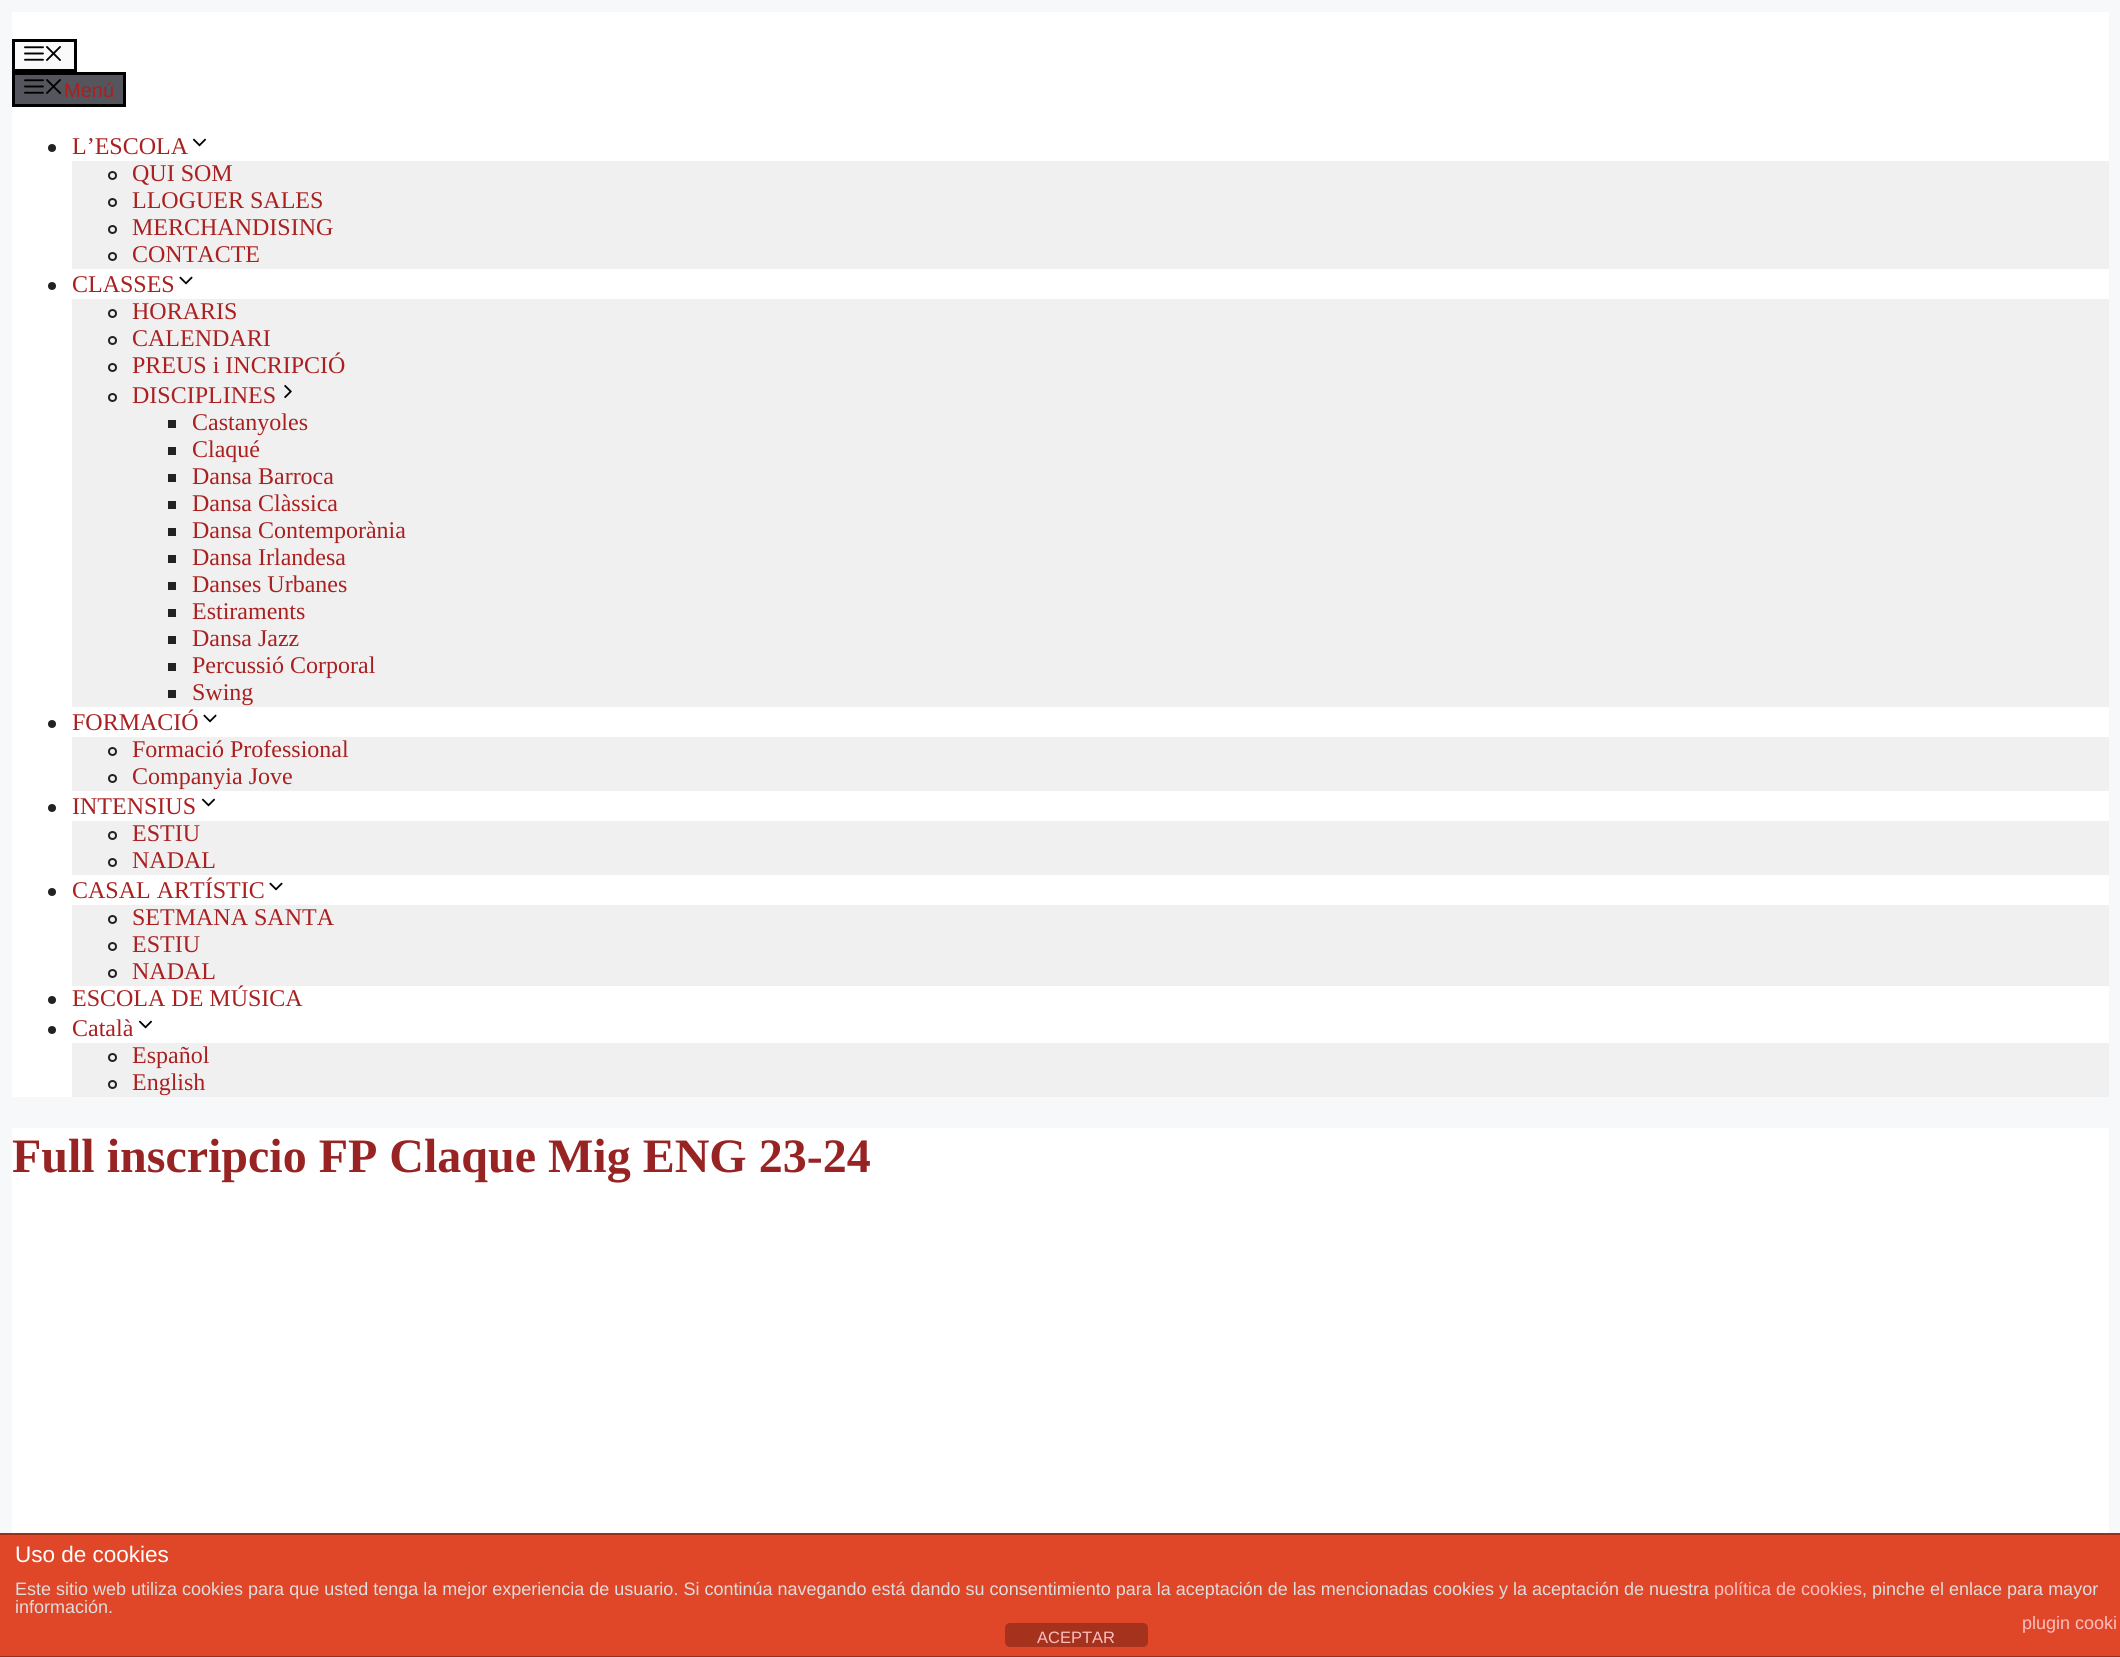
#include <cairo.h>
#include <math.h>
#include <stddef.h>

typedef struct { double x, y, w, h; unsigned color; } box_t;

static void ink(cairo_t *ctx, unsigned color) {
    cairo_set_source_rgb(ctx, (color >> 16) / 255.0, (color >> 8 & 255) / 255.0, (color & 255) / 255.0);
}

static void round_path(cairo_t *ctx, double x, double y, double w, double h, double r) {
    cairo_new_sub_path(ctx);
    cairo_arc(ctx, x + w - r, y + h - r, r, 0, M_PI / 2);
    cairo_arc(ctx, x + r, y + h - r, r, M_PI / 2, M_PI);
    cairo_arc(ctx, x + r, y + r, r, M_PI, 1.5 * M_PI);
    cairo_arc(ctx, x + w - r, y + r, r, 1.5 * M_PI, 2 * M_PI);
    cairo_close_path(ctx);
}

static void paste(cairo_t *ctx, const char *path, double x, double y, double w, double h) {
    cairo_surface_t *image = cairo_image_surface_create_from_png(path);
    cairo_save(ctx);
    cairo_set_source_surface(ctx, image, x, y);
    cairo_rectangle(ctx, x, y, w, h);
    cairo_fill(ctx);
    cairo_restore(ctx);
    cairo_surface_destroy(image);
}

int main(void) {
    cairo_surface_t *surface = cairo_image_surface_create(CAIRO_FORMAT_RGB24, 2120, 1657);
    cairo_t *ctx = cairo_create(surface);
    cairo_font_options_t *options = cairo_font_options_create();
    cairo_font_options_set_hint_metrics(options, CAIRO_HINT_METRICS_OFF);
    cairo_font_options_set_hint_style(options, CAIRO_HINT_STYLE_NONE);
    cairo_set_font_options(ctx, options);
    cairo_set_miter_limit(ctx, 4);
    ink(ctx, 0xF7F8F9);
    cairo_paint(ctx);
    ink(ctx, 0xFFFFFF);
    cairo_rectangle(ctx, 12, 12, 2097, 1085);
    cairo_fill(ctx);
    ink(ctx, 0xFAFAFA);
    cairo_rectangle(ctx, 13.5, 40.5, 62, 30);
    cairo_fill_preserve(ctx);
    ink(ctx, 0x000000);
    cairo_set_line_width(ctx, 3);
    cairo_stroke(ctx);
    paste(ctx, "media/1.png", 24, 46, 20, 15);
    paste(ctx, "media/2.png", 46, 46, 15, 15);
    ink(ctx, 0x55555E);
    cairo_rectangle(ctx, 13.5, 73.5, 111, 32);
    cairo_fill_preserve(ctx);
    ink(ctx, 0x000000);
    cairo_stroke(ctx);
    paste(ctx, "media/3.png", 24, 79, 20, 15);
    paste(ctx, "media/4.png", 46, 79, 15, 15);
    cairo_select_font_face(ctx, "Liberation Sans", CAIRO_FONT_SLANT_NORMAL, CAIRO_FONT_WEIGHT_NORMAL);
    cairo_set_font_size(ctx, 20);
    ink(ctx, 0xAA2020);
    cairo_move_to(ctx, 64, 97);
    cairo_show_text(ctx, "Menú");
    cairo_select_font_face(ctx, "Liberation Serif", CAIRO_FONT_SLANT_NORMAL, CAIRO_FONT_WEIGHT_NORMAL);
    cairo_set_font_size(ctx, 24);
    cairo_move_to(ctx, 72, 154);
    cairo_show_text(ctx, "L’ESCOLA");
    paste(ctx, "media/5.png", 192, 138, 15, 9);
    ink(ctx, 0x222222);
    cairo_arc(ctx, 52, 148, 4, 0, 2 * M_PI);
    cairo_fill(ctx);
    ink(ctx, 0xF0F0F0);
    cairo_rectangle(ctx, 72, 161, 2037, 108);
    cairo_fill(ctx);
    cairo_arc(ctx, 112.5, 175.5, 3.5, 0, 2 * M_PI);
    ink(ctx, 0x222222);
    cairo_set_line_width(ctx, 2);
    cairo_stroke(ctx);
    ink(ctx, 0xAA2020);
    cairo_move_to(ctx, 132, 181);
    cairo_show_text(ctx, "QUI SOM");
    cairo_new_path(ctx);
    cairo_arc(ctx, 112.5, 202.5, 3.5, 0, 2 * M_PI);
    ink(ctx, 0x222222);
    cairo_stroke(ctx);
    ink(ctx, 0xAA2020);
    cairo_move_to(ctx, 132, 208);
    cairo_show_text(ctx, "LLOGUER SALES");
    cairo_new_path(ctx);
    cairo_arc(ctx, 112.5, 229.5, 3.5, 0, 2 * M_PI);
    ink(ctx, 0x222222);
    cairo_stroke(ctx);
    ink(ctx, 0xAA2020);
    cairo_move_to(ctx, 132, 235);
    cairo_show_text(ctx, "MERCHANDISING");
    cairo_new_path(ctx);
    cairo_arc(ctx, 112.5, 256.5, 3.5, 0, 2 * M_PI);
    ink(ctx, 0x222222);
    cairo_stroke(ctx);
    ink(ctx, 0xAA2020);
    cairo_move_to(ctx, 132, 262);
    cairo_show_text(ctx, "CONTACTE");
    cairo_move_to(ctx, 72, 292);
    cairo_show_text(ctx, "CLASSES");
    paste(ctx, "media/6.png", 179, 276, 14, 9);
    ink(ctx, 0x222222);
    cairo_arc(ctx, 52, 286, 4, 0, 2 * M_PI);
    cairo_fill(ctx);
    ink(ctx, 0xF0F0F0);
    cairo_rectangle(ctx, 72, 299, 2037, 408);
    cairo_fill(ctx);
    cairo_arc(ctx, 112.5, 313.5, 3.5, 0, 2 * M_PI);
    ink(ctx, 0x222222);
    cairo_stroke(ctx);
    ink(ctx, 0xAA2020);
    cairo_move_to(ctx, 132, 319);
    cairo_show_text(ctx, "HORARIS");
    cairo_new_path(ctx);
    cairo_arc(ctx, 112.5, 340.5, 3.5, 0, 2 * M_PI);
    ink(ctx, 0x222222);
    cairo_stroke(ctx);
    ink(ctx, 0xAA2020);
    cairo_move_to(ctx, 132, 346);
    cairo_show_text(ctx, "CALENDARI");
    cairo_new_path(ctx);
    cairo_arc(ctx, 112.5, 367.5, 3.5, 0, 2 * M_PI);
    ink(ctx, 0x222222);
    cairo_stroke(ctx);
    ink(ctx, 0xAA2020);
    cairo_move_to(ctx, 132, 373);
    cairo_show_text(ctx, "PREUS i INCRIPCIÓ");
    cairo_new_path(ctx);
    cairo_arc(ctx, 112.5, 397.5, 3.5, 0, 2 * M_PI);
    ink(ctx, 0x222222);
    cairo_stroke(ctx);
    ink(ctx, 0xAA2020);
    cairo_move_to(ctx, 132, 403);
    cairo_show_text(ctx, "DISCIPLINES");
    paste(ctx, "media/7.png", 284, 384, 8, 15);
    ink(ctx, 0x222222);
    cairo_rectangle(ctx, 168, 420, 8, 8);
    cairo_fill(ctx);
    ink(ctx, 0xAA2020);
    cairo_move_to(ctx, 192, 430);
    cairo_show_text(ctx, "Castanyoles");
    ink(ctx, 0x222222);
    cairo_rectangle(ctx, 168, 447, 8, 8);
    cairo_fill(ctx);
    ink(ctx, 0xAA2020);
    cairo_move_to(ctx, 192, 457);
    cairo_show_text(ctx, "Claqué");
    ink(ctx, 0x222222);
    cairo_rectangle(ctx, 168, 474, 8, 8);
    cairo_fill(ctx);
    ink(ctx, 0xAA2020);
    cairo_move_to(ctx, 192, 484);
    cairo_show_text(ctx, "Dansa Barroca");
    ink(ctx, 0x222222);
    cairo_rectangle(ctx, 168, 501, 8, 8);
    cairo_fill(ctx);
    ink(ctx, 0xAA2020);
    cairo_move_to(ctx, 192, 511);
    cairo_show_text(ctx, "Dansa Clàssica");
    ink(ctx, 0x222222);
    cairo_rectangle(ctx, 168, 528, 8, 8);
    cairo_fill(ctx);
    ink(ctx, 0xAA2020);
    cairo_move_to(ctx, 192, 538);
    cairo_show_text(ctx, "Dansa Contemporània");
    ink(ctx, 0x222222);
    cairo_rectangle(ctx, 168, 555, 8, 8);
    cairo_fill(ctx);
    ink(ctx, 0xAA2020);
    cairo_move_to(ctx, 192, 565);
    cairo_show_text(ctx, "Dansa Irlandesa");
    ink(ctx, 0x222222);
    cairo_rectangle(ctx, 168, 582, 8, 8);
    cairo_fill(ctx);
    ink(ctx, 0xAA2020);
    cairo_move_to(ctx, 192, 592);
    cairo_show_text(ctx, "Danses Urbanes");
    ink(ctx, 0x222222);
    cairo_rectangle(ctx, 168, 609, 8, 8);
    cairo_fill(ctx);
    ink(ctx, 0xAA2020);
    cairo_move_to(ctx, 192, 619);
    cairo_show_text(ctx, "Estiraments");
    ink(ctx, 0x222222);
    cairo_rectangle(ctx, 168, 636, 8, 8);
    cairo_fill(ctx);
    ink(ctx, 0xAA2020);
    cairo_move_to(ctx, 192, 646);
    cairo_show_text(ctx, "Dansa Jazz");
    ink(ctx, 0x222222);
    cairo_rectangle(ctx, 168, 663, 8, 8);
    cairo_fill(ctx);
    ink(ctx, 0xAA2020);
    cairo_move_to(ctx, 192, 673);
    cairo_show_text(ctx, "Percussió Corporal");
    ink(ctx, 0x222222);
    cairo_rectangle(ctx, 168, 690, 8, 8);
    cairo_fill(ctx);
    ink(ctx, 0xAA2020);
    cairo_move_to(ctx, 192, 700);
    cairo_show_text(ctx, "Swing");
    cairo_move_to(ctx, 72, 730);
    cairo_show_text(ctx, "FORMACIÓ");
    paste(ctx, "media/6.png", 203, 714, 14, 9);
    ink(ctx, 0x222222);
    cairo_arc(ctx, 52, 724, 4, 0, 2 * M_PI);
    cairo_fill(ctx);
    ink(ctx, 0xF0F0F0);
    cairo_rectangle(ctx, 72, 737, 2037, 54);
    cairo_fill(ctx);
    cairo_arc(ctx, 112.5, 751.5, 3.5, 0, 2 * M_PI);
    ink(ctx, 0x222222);
    cairo_stroke(ctx);
    ink(ctx, 0xAA2020);
    cairo_move_to(ctx, 132, 757);
    cairo_show_text(ctx, "Formació Professional");
    cairo_new_path(ctx);
    cairo_arc(ctx, 112.5, 778.5, 3.5, 0, 2 * M_PI);
    ink(ctx, 0x222222);
    cairo_stroke(ctx);
    ink(ctx, 0xAA2020);
    cairo_move_to(ctx, 132, 784);
    cairo_show_text(ctx, "Companyia Jove");
    cairo_move_to(ctx, 72, 814);
    cairo_show_text(ctx, "INTENSIUS");
    paste(ctx, "media/5.png", 201, 798, 15, 9);
    ink(ctx, 0x222222);
    cairo_arc(ctx, 52, 808, 4, 0, 2 * M_PI);
    cairo_fill(ctx);
    ink(ctx, 0xF0F0F0);
    cairo_rectangle(ctx, 72, 821, 2037, 54);
    cairo_fill(ctx);
    cairo_arc(ctx, 112.5, 835.5, 3.5, 0, 2 * M_PI);
    ink(ctx, 0x222222);
    cairo_stroke(ctx);
    ink(ctx, 0xAA2020);
    cairo_move_to(ctx, 132, 841);
    cairo_show_text(ctx, "ESTIU");
    cairo_new_path(ctx);
    cairo_arc(ctx, 112.5, 862.5, 3.5, 0, 2 * M_PI);
    ink(ctx, 0x222222);
    cairo_stroke(ctx);
    ink(ctx, 0xAA2020);
    cairo_move_to(ctx, 132, 868);
    cairo_show_text(ctx, "NADAL");
    cairo_move_to(ctx, 72, 898);
    cairo_show_text(ctx, "CASAL ARTÍSTIC");
    paste(ctx, "media/6.png", 269, 882, 14, 9);
    ink(ctx, 0x222222);
    cairo_arc(ctx, 52, 892, 4, 0, 2 * M_PI);
    cairo_fill(ctx);
    ink(ctx, 0xF0F0F0);
    cairo_rectangle(ctx, 72, 905, 2037, 81);
    cairo_fill(ctx);
    cairo_arc(ctx, 112.5, 919.5, 3.5, 0, 2 * M_PI);
    ink(ctx, 0x222222);
    cairo_stroke(ctx);
    ink(ctx, 0xAA2020);
    cairo_move_to(ctx, 132, 925);
    cairo_show_text(ctx, "SETMANA SANTA");
    cairo_new_path(ctx);
    cairo_arc(ctx, 112.5, 946.5, 3.5, 0, 2 * M_PI);
    ink(ctx, 0x222222);
    cairo_stroke(ctx);
    ink(ctx, 0xAA2020);
    cairo_move_to(ctx, 132, 952);
    cairo_show_text(ctx, "ESTIU");
    cairo_new_path(ctx);
    cairo_arc(ctx, 112.5, 973.5, 3.5, 0, 2 * M_PI);
    ink(ctx, 0x222222);
    cairo_stroke(ctx);
    ink(ctx, 0xAA2020);
    cairo_move_to(ctx, 132, 979);
    cairo_show_text(ctx, "NADAL");
    ink(ctx, 0x222222);
    cairo_new_path(ctx);
    cairo_arc(ctx, 52, 1000, 4, 0, 2 * M_PI);
    cairo_fill(ctx);
    ink(ctx, 0xAA2020);
    cairo_move_to(ctx, 72, 1006);
    cairo_show_text(ctx, "ESCOLA DE MÚSICA");
    cairo_move_to(ctx, 72, 1036);
    cairo_show_text(ctx, "Català");
    paste(ctx, "media/5.png", 138, 1020, 15, 9);
    ink(ctx, 0x222222);
    cairo_arc(ctx, 52, 1030, 4, 0, 2 * M_PI);
    cairo_fill(ctx);
    ink(ctx, 0xF0F0F0);
    cairo_rectangle(ctx, 72, 1043, 2037, 54);
    cairo_fill(ctx);
    cairo_arc(ctx, 112.5, 1057.5, 3.5, 0, 2 * M_PI);
    ink(ctx, 0x222222);
    cairo_stroke(ctx);
    ink(ctx, 0xAA2020);
    cairo_move_to(ctx, 132, 1063);
    cairo_show_text(ctx, "Español");
    cairo_new_path(ctx);
    cairo_arc(ctx, 112.5, 1084.5, 3.5, 0, 2 * M_PI);
    ink(ctx, 0x222222);
    cairo_stroke(ctx);
    ink(ctx, 0xAA2020);
    cairo_move_to(ctx, 132, 1090);
    cairo_show_text(ctx, "English");
    ink(ctx, 0xFFFFFF);
    cairo_rectangle(ctx, 12, 1128, 2097, 405);
    cairo_fill(ctx);
    cairo_select_font_face(ctx, "Liberation Serif", CAIRO_FONT_SLANT_NORMAL, CAIRO_FONT_WEIGHT_BOLD);
    cairo_set_font_size(ctx, 48);
    ink(ctx, 0x972323);
    cairo_move_to(ctx, 12, 1172);
    cairo_show_text(ctx, "Full inscripcio FP Claque Mig ENG 23-24");
    {
        static const box_t items[] = {
            {0, 1535, 2120, 121, 0xE04729},
            {0, 1533, 2120, 2, 0x99301B},
            {0, 1656, 2120, 1, 0x99301B},
        };
        for (size_t i = 0; i < sizeof items / sizeof *items; i++) {
            ink(ctx, items[i].color);
            cairo_rectangle(ctx, items[i].x, items[i].y, items[i].w, items[i].h);
            cairo_fill(ctx);
        }
    }
    cairo_select_font_face(ctx, "Liberation Sans", CAIRO_FONT_SLANT_NORMAL, CAIRO_FONT_WEIGHT_NORMAL);
    cairo_set_font_size(ctx, 22.5);
    ink(ctx, 0xFFFFFF);
    cairo_move_to(ctx, 15, 1562);
    cairo_show_text(ctx, "Uso de cookies");
    cairo_set_font_size(ctx, 18);
    ink(ctx, 0xDDDDDD);
    cairo_move_to(ctx, 15, 1595);
    cairo_show_text(ctx, "Este sitio web utiliza cookies para que usted tenga la mejor experiencia de usuario. Si continúa navegando está dando su consentimiento para la aceptación de las mencionadas cookies y la aceptación de nuestra");
    ink(ctx, 0xFEBEBE);
    cairo_move_to(ctx, 1714, 1595);
    cairo_show_text(ctx, "política de cookies");
    ink(ctx, 0xDDDDDD);
    cairo_move_to(ctx, 1862, 1595);
    cairo_show_text(ctx, ", pinche el enlace para mayor");
    cairo_move_to(ctx, 15, 1613);
    cairo_show_text(ctx, "información.");
    ink(ctx, 0xFEBEBE);
    cairo_move_to(ctx, 2022, 1629);
    cairo_show_text(ctx, "plugin cooki");
    ink(ctx, 0xA5321C);
    round_path(ctx, 1005, 1623, 143, 24, 5);
    cairo_fill(ctx);
    cairo_set_font_size(ctx, 16.5);
    ink(ctx, 0xFEBEBE);
    cairo_move_to(ctx, 1037, 1643);
    cairo_show_text(ctx, "ACEPTAR");
    cairo_surface_write_to_png(surface, "image.png");
    cairo_font_options_destroy(options);
    cairo_destroy(ctx);
    cairo_surface_destroy(surface);
    return 0;
}
